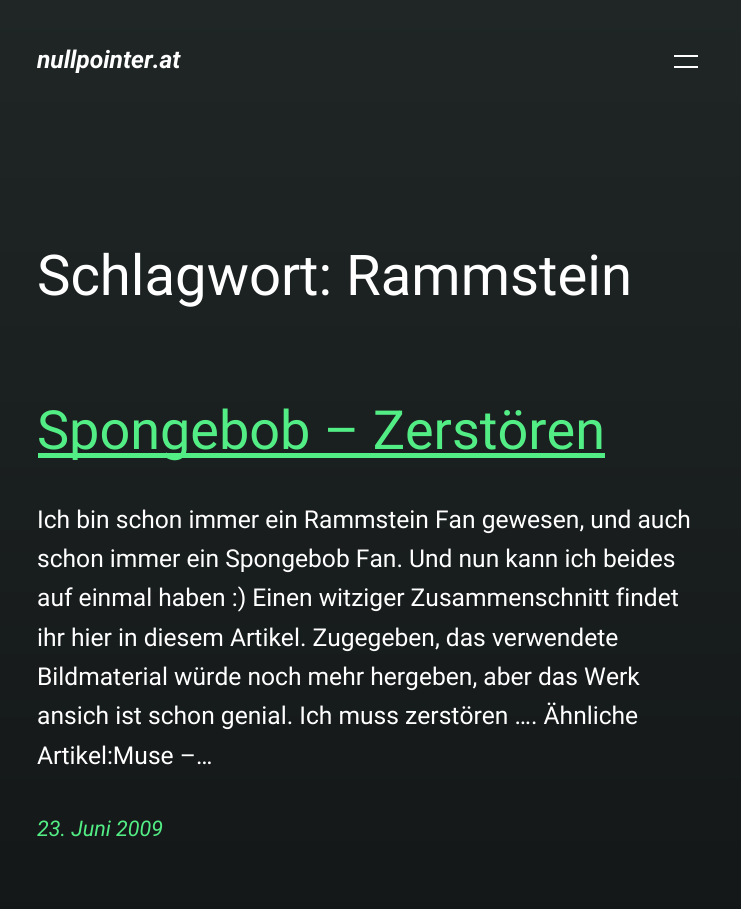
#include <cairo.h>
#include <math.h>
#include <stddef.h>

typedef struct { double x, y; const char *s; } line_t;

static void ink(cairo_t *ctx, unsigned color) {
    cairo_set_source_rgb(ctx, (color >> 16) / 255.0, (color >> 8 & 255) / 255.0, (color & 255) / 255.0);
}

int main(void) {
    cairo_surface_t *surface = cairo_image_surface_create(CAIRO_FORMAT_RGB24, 741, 909);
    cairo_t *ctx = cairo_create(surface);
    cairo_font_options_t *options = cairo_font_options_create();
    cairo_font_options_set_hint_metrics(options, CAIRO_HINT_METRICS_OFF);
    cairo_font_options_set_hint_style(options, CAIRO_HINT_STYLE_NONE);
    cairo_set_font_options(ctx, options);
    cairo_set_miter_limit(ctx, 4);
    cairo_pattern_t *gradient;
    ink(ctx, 0xFFFFFF);
    cairo_paint(ctx);
    gradient = cairo_pattern_create_linear(370, 0, 371, 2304);
    cairo_pattern_add_color_stop_rgba(gradient, 0, 0.125, 0.149, 0.149, 1);
    cairo_pattern_add_color_stop_rgba(gradient, 1, 0.004, 0.004, 0.004, 1);
    cairo_set_source(ctx, gradient);
    cairo_pattern_destroy(gradient);
    cairo_rectangle(ctx, 0, 0, 741, 909);
    cairo_fill(ctx);
    cairo_select_font_face(ctx, "Roboto", CAIRO_FONT_SLANT_ITALIC, CAIRO_FONT_WEIGHT_BOLD);
    cairo_set_font_size(ctx, 24.6);
    ink(ctx, 0xFFFFFF);
    cairo_move_to(ctx, 37, 68);
    cairo_show_text(ctx, "nullpointer.at");
    cairo_rectangle(ctx, 674, 55, 24, 2);
    cairo_fill(ctx);
    cairo_rectangle(ctx, 674, 66, 24, 2);
    cairo_fill(ctx);
    cairo_select_font_face(ctx, "Roboto", CAIRO_FONT_SLANT_NORMAL, CAIRO_FONT_WEIGHT_NORMAL);
    cairo_set_font_size(ctx, 56.25);
    cairo_move_to(ctx, 37, 295);
    cairo_show_text(ctx, "Schlagwort: Rammstein");
    ink(ctx, 0x53ED85);
    cairo_rectangle(ctx, 38, 453, 567, 5);
    cairo_fill(ctx);
    cairo_set_font_size(ctx, 54);
    cairo_move_to(ctx, 37, 449);
    cairo_show_text(ctx, "Spongebob – Zerstören");
    cairo_set_font_size(ctx, 24.6);
    ink(ctx, 0xFFFFFF);
    {
        static const line_t items[] = {
            {37, 528, "Ich bin schon immer ein Rammstein Fan gewesen, und auch"},
            {37, 567, "schon immer ein Spongebob Fan. Und nun kann ich beides"},
            {37, 606, "auf einmal haben :) Einen witziger Zusammenschnitt findet"},
            {37, 646, "ihr hier in diesem Artikel. Zugegeben, das verwendete"},
            {37, 685, "Bildmaterial würde noch mehr hergeben, aber das Werk"},
            {37, 724, "ansich ist schon genial. Ich muss zerstören …. Ähnliche"},
            {37, 764, "Artikel:Muse –…"},
        };
        for (size_t i = 0; i < sizeof items / sizeof *items; i++) {
            cairo_move_to(ctx, items[i].x, items[i].y);
            cairo_show_text(ctx, items[i].s);
        }
    }
    cairo_select_font_face(ctx, "Roboto", CAIRO_FONT_SLANT_ITALIC, CAIRO_FONT_WEIGHT_NORMAL);
    cairo_set_font_size(ctx, 21.5);
    ink(ctx, 0x53ED85);
    cairo_move_to(ctx, 37, 836);
    cairo_show_text(ctx, "23. Juni 2009");
    cairo_surface_write_to_png(surface, "image.png");
    cairo_font_options_destroy(options);
    cairo_destroy(ctx);
    cairo_surface_destroy(surface);
    return 0;
}
